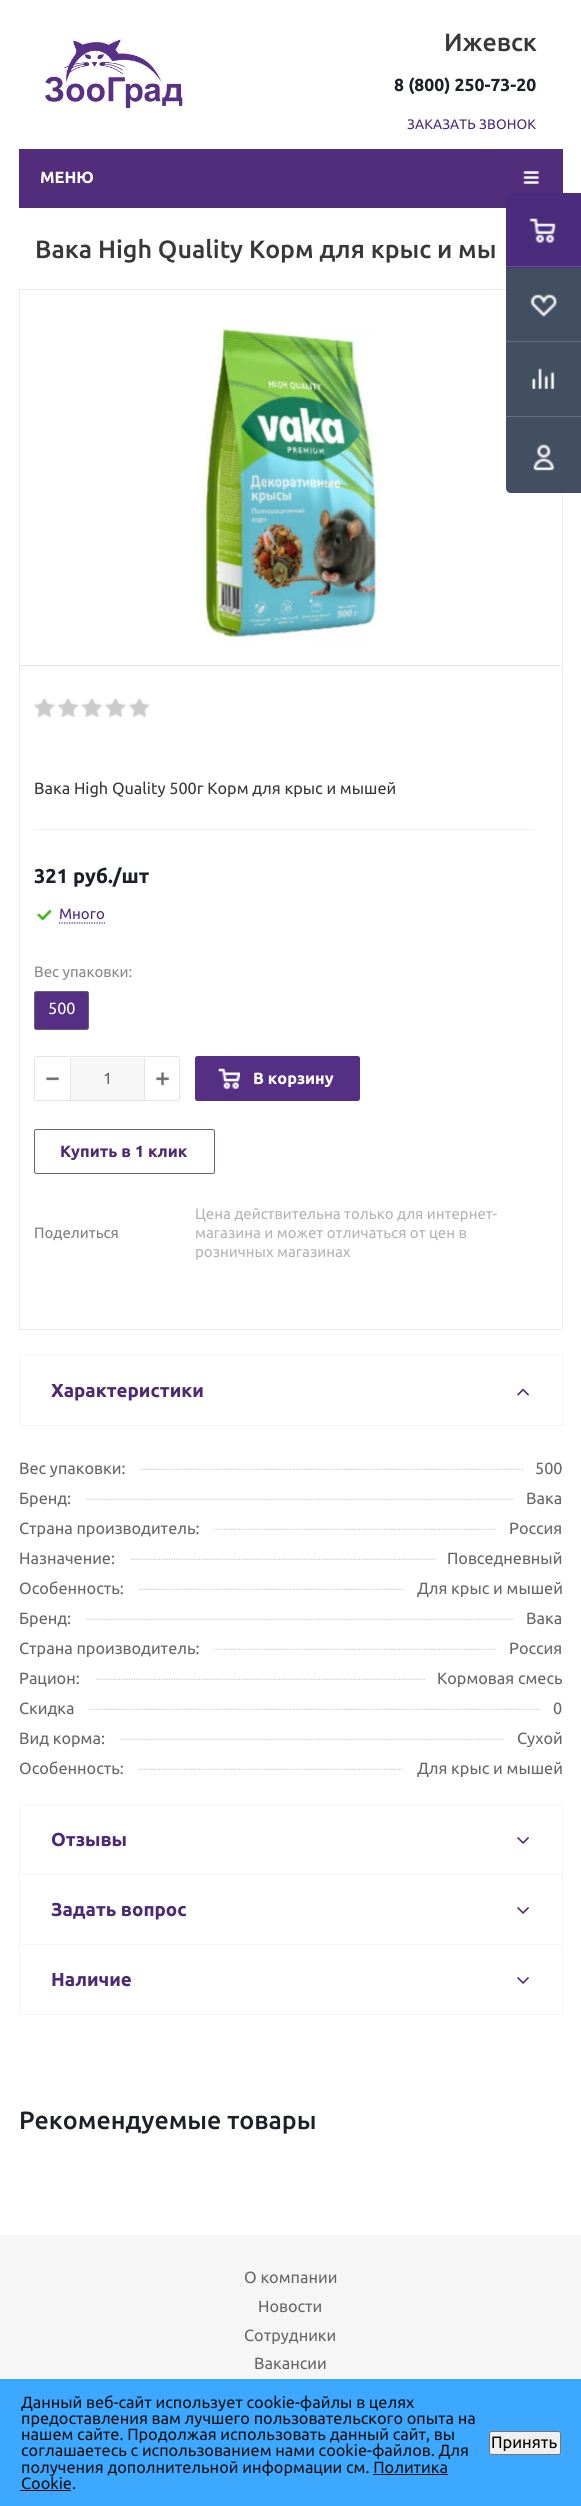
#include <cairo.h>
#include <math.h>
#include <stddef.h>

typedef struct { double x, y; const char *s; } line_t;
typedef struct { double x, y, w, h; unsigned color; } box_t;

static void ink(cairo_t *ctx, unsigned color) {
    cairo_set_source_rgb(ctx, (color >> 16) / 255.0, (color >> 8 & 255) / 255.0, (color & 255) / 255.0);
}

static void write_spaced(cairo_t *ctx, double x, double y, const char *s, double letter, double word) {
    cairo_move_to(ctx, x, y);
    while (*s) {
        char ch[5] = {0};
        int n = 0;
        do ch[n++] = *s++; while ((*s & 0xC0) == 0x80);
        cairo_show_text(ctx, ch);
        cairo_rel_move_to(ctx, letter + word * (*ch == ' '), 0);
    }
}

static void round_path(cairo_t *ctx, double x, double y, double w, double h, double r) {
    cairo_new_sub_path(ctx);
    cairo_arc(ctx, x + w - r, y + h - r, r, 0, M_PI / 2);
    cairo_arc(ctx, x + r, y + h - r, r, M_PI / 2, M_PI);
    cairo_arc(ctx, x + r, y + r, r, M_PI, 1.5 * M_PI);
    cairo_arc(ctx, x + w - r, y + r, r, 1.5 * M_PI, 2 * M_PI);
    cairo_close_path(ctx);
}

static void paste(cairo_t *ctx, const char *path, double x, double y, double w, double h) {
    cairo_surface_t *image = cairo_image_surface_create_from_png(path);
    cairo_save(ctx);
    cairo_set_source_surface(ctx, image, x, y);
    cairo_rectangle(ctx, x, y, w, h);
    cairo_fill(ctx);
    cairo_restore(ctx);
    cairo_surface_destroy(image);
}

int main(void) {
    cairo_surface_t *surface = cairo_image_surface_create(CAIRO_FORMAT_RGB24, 581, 2506);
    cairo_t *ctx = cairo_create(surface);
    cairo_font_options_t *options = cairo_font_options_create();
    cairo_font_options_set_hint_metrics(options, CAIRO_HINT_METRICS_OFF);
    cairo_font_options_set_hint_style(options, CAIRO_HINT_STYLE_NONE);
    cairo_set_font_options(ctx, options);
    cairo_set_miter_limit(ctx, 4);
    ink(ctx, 0xFFFFFF);
    cairo_paint(ctx);
    paste(ctx, "media/1.png", 45, 37, 138, 71);
    cairo_select_font_face(ctx, "Ubuntu Medium", CAIRO_FONT_SLANT_NORMAL, CAIRO_FONT_WEIGHT_NORMAL);
    cairo_set_font_size(ctx, 25);
    ink(ctx, 0x383838);
    cairo_move_to(ctx, 444, 51);
    cairo_show_text(ctx, "Ижевск");
    cairo_select_font_face(ctx, "Ubuntu", CAIRO_FONT_SLANT_NORMAL, CAIRO_FONT_WEIGHT_BOLD);
    cairo_set_font_size(ctx, 17.5);
    ink(ctx, 0x1D2029);
    cairo_move_to(ctx, 394, 91);
    cairo_show_text(ctx, "8 (800) 250-73-20");
    cairo_select_font_face(ctx, "Ubuntu", CAIRO_FONT_SLANT_NORMAL, CAIRO_FONT_WEIGHT_NORMAL);
    cairo_set_font_size(ctx, 13.75);
    ink(ctx, 0x4C2974);
    write_spaced(ctx, 407, 129, "ЗАКАЗАТЬ ЗВОНОК", 0.1, 0);
    ink(ctx, 0x512D7B);
    cairo_rectangle(ctx, 19, 149, 544, 59);
    cairo_fill(ctx);
    cairo_rectangle(ctx, 19.5, 289.5, 543, 1040);
    ink(ctx, 0xEAEBEC);
    cairo_set_line_width(ctx, 1);
    cairo_stroke(ctx);
    ink(ctx, 0x424F60);
    cairo_new_path(ctx);
    cairo_move_to(ctx, 511, 193);
    cairo_line_to(ctx, 581, 193);
    cairo_line_to(ctx, 581, 493);
    cairo_line_to(ctx, 511, 493);
    cairo_curve_to(ctx, 508, 493, 506, 491, 506, 488);
    cairo_line_to(ctx, 506, 198);
    cairo_curve_to(ctx, 506, 195, 508, 193, 511, 193);
    cairo_close_path(ctx);
    cairo_fill(ctx);
    ink(ctx, 0x4B2C7C);
    cairo_new_path(ctx);
    cairo_move_to(ctx, 511, 193);
    cairo_line_to(ctx, 581, 193);
    cairo_line_to(ctx, 581, 268);
    cairo_line_to(ctx, 506, 268);
    cairo_line_to(ctx, 506, 198);
    cairo_curve_to(ctx, 506, 195, 508, 193, 511, 193);
    cairo_close_path(ctx);
    cairo_fill(ctx);
    paste(ctx, "media/2.png", 529, 218, 27, 25);
    ink(ctx, 0x6A5394);
    cairo_rectangle(ctx, 506, 266, 75, 1);
    cairo_fill(ctx);
    paste(ctx, "media/3.png", 530, 294, 27, 23);
    ink(ctx, 0x636F7D);
    cairo_rectangle(ctx, 506, 341, 75, 1);
    cairo_fill(ctx);
    paste(ctx, "media/4.png", 531, 368, 24, 21);
    cairo_rectangle(ctx, 506, 416, 75, 1);
    cairo_fill(ctx);
    paste(ctx, "media/5.png", 533, 444, 22, 27);
    cairo_select_font_face(ctx, "Ubuntu", CAIRO_FONT_SLANT_NORMAL, CAIRO_FONT_WEIGHT_BOLD);
    cairo_set_font_size(ctx, 16.25);
    ink(ctx, 0xFFFFFF);
    cairo_move_to(ctx, 40, 183);
    cairo_show_text(ctx, "МЕНЮ");
    paste(ctx, "media/6.png", 523, 171, 16, 13);
    cairo_select_font_face(ctx, "Ubuntu Medium", CAIRO_FONT_SLANT_NORMAL, CAIRO_FONT_WEIGHT_NORMAL);
    cairo_set_font_size(ctx, 25);
    ink(ctx, 0x383838);
    cairo_move_to(ctx, 35, 258);
    cairo_show_text(ctx, "Вака High Quality Корм для крыс и мы");
    paste(ctx, "media/7.png", 205, 328, 176, 314);
    ink(ctx, 0xE5E5E5);
    cairo_rectangle(ctx, 20, 665, 541, 1);
    cairo_fill(ctx);
    ink(ctx, 0xF2F2F2);
    cairo_rectangle(ctx, 34, 829, 501, 1);
    cairo_fill(ctx);
    paste(ctx, "media/8.png", 34, 698, 21, 20);
    paste(ctx, "media/9.png", 57, 698, 22, 20);
    paste(ctx, "media/10.png", 81, 698, 22, 20);
    paste(ctx, "media/11.png", 105, 698, 22, 20);
    paste(ctx, "media/12.png", 128, 698, 22, 20);
    cairo_select_font_face(ctx, "Ubuntu", CAIRO_FONT_SLANT_NORMAL, CAIRO_FONT_WEIGHT_NORMAL);
    cairo_set_font_size(ctx, 16.25);
    ink(ctx, 0x383838);
    cairo_move_to(ctx, 34, 794);
    cairo_show_text(ctx, "Вака High Quality 500г Корм для крыс и мышей");
    cairo_select_font_face(ctx, "Ubuntu", CAIRO_FONT_SLANT_NORMAL, CAIRO_FONT_WEIGHT_BOLD);
    cairo_set_font_size(ctx, 20);
    ink(ctx, 0x1D2029);
    cairo_move_to(ctx, 34, 883);
    cairo_show_text(ctx, "321 руб./шт");
    paste(ctx, "media/13.png", 37, 909, 15, 12);
    cairo_select_font_face(ctx, "Ubuntu", CAIRO_FONT_SLANT_NORMAL, CAIRO_FONT_WEIGHT_NORMAL);
    cairo_set_font_size(ctx, 15);
    ink(ctx, 0x4C2974);
    cairo_move_to(ctx, 59, 919);
    cairo_show_text(ctx, "Много");
    cairo_new_path(ctx);
    cairo_move_to(ctx, 59, 923);
    cairo_line_to(ctx, 105, 923);
    cairo_set_line_width(ctx, 1.2);
    cairo_set_dash(ctx, (double[]){1.25, 1.25}, 2, 0);
    cairo_stroke(ctx);
    ink(ctx, 0x888888);
    cairo_move_to(ctx, 34, 977);
    cairo_show_text(ctx, "Вес упаковки:");
    ink(ctx, 0x552F83);
    round_path(ctx, 34.5, 991.5, 54, 38, 2);
    cairo_fill_preserve(ctx);
    ink(ctx, 0x6B5F77);
    cairo_set_line_width(ctx, 1);
    cairo_set_dash(ctx, NULL, 0, 0);
    cairo_stroke(ctx);
    cairo_set_font_size(ctx, 16.25);
    ink(ctx, 0xFFFFFF);
    cairo_move_to(ctx, 48, 1014);
    cairo_show_text(ctx, "500");
    round_path(ctx, 34.5, 1056.5, 145, 44, 2);
    ink(ctx, 0xE5E5E5);
    cairo_stroke(ctx);
    paste(ctx, "media/14.png", 46, 1077, 13, 4);
    {
        static const box_t items[] = {
            {71, 1058, 73, 42, 0xF7F7F7},
            {144, 1058, 1, 42, 0xE5E5E5},
            {70, 1058, 1, 42, 0xE5E5E5},
        };
        for (size_t i = 0; i < sizeof items / sizeof *items; i++) {
            ink(ctx, items[i].color);
            cairo_rectangle(ctx, items[i].x, items[i].y, items[i].w, items[i].h);
            cairo_fill(ctx);
        }
    }
    ink(ctx, 0x666666);
    cairo_move_to(ctx, 103, 1084);
    cairo_show_text(ctx, "1");
    paste(ctx, "media/15.png", 156, 1072, 13, 14);
    ink(ctx, 0x552F83);
    round_path(ctx, 195, 1056, 165, 45, 2.5);
    cairo_fill(ctx);
    paste(ctx, "media/16.png", 218, 1068, 22, 21);
    cairo_select_font_face(ctx, "Ubuntu", CAIRO_FONT_SLANT_NORMAL, CAIRO_FONT_WEIGHT_BOLD);
    ink(ctx, 0xFFFFFF);
    cairo_move_to(ctx, 253, 1084);
    cairo_show_text(ctx, "В корзину");
    round_path(ctx, 34.5, 1129.5, 180, 44, 2);
    ink(ctx, 0x6B5F77);
    cairo_stroke(ctx);
    ink(ctx, 0x4C2974);
    cairo_move_to(ctx, 60, 1157);
    cairo_show_text(ctx, "Купить в 1 клик");
    cairo_select_font_face(ctx, "Ubuntu", CAIRO_FONT_SLANT_NORMAL, CAIRO_FONT_WEIGHT_NORMAL);
    cairo_set_font_size(ctx, 15);
    ink(ctx, 0x7E7E7E);
    cairo_move_to(ctx, 34, 1238);
    cairo_show_text(ctx, "Поделиться");
    ink(ctx, 0xB3B3B3);
    {
        static const line_t items[] = {
            {195, 1219, "Цена действительна только для интернет-"},
            {195, 1238, "магазина и может отличаться от цен в"},
            {195, 1257, "розничных магазинах"},
        };
        for (size_t i = 0; i < sizeof items / sizeof *items; i++) {
            cairo_move_to(ctx, items[i].x, items[i].y);
            cairo_show_text(ctx, items[i].s);
        }
    }
    cairo_rectangle(ctx, 19.5, 1355.5, 543, 70);
    ink(ctx, 0xF5F5F5);
    cairo_stroke(ctx);
    cairo_select_font_face(ctx, "Ubuntu", CAIRO_FONT_SLANT_NORMAL, CAIRO_FONT_WEIGHT_BOLD);
    cairo_set_font_size(ctx, 18.75);
    ink(ctx, 0x4C2974);
    cairo_move_to(ctx, 51, 1397);
    cairo_show_text(ctx, "Характеристики");
    paste(ctx, "media/17.png", 517, 1388, 12, 8);
    paste(ctx, "media/18.png", 18, 1468, 274, 2);
    ink(ctx, 0xFFFFFF);
    cairo_rectangle(ctx, 19, 1468, 121, 2);
    cairo_fill(ctx);
    cairo_select_font_face(ctx, "Ubuntu", CAIRO_FONT_SLANT_NORMAL, CAIRO_FONT_WEIGHT_NORMAL);
    cairo_set_font_size(ctx, 16.25);
    ink(ctx, 0x666666);
    cairo_move_to(ctx, 19, 1474);
    cairo_show_text(ctx, "Вес упаковки:");
    paste(ctx, "media/19.png", 291, 1468, 232, 2);
    cairo_move_to(ctx, 535, 1474);
    cairo_show_text(ctx, "500");
    paste(ctx, "media/18.png", 18, 1498, 274, 2);
    ink(ctx, 0xFFFFFF);
    cairo_rectangle(ctx, 19, 1498, 67, 2);
    cairo_fill(ctx);
    ink(ctx, 0x666666);
    cairo_move_to(ctx, 19, 1504);
    cairo_show_text(ctx, "Бренд:");
    paste(ctx, "media/20.png", 291, 1498, 223, 2);
    cairo_move_to(ctx, 526, 1504);
    cairo_show_text(ctx, "Вака");
    paste(ctx, "media/18.png", 18, 1528, 274, 2);
    ink(ctx, 0xFFFFFF);
    cairo_rectangle(ctx, 19, 1528, 195, 2);
    cairo_fill(ctx);
    ink(ctx, 0x666666);
    cairo_move_to(ctx, 19, 1534);
    cairo_show_text(ctx, "Страна производитель:");
    paste(ctx, "media/21.png", 291, 1528, 205, 2);
    cairo_move_to(ctx, 509, 1534);
    cairo_show_text(ctx, "Россия");
    paste(ctx, "media/18.png", 18, 1558, 274, 2);
    ink(ctx, 0xFFFFFF);
    cairo_rectangle(ctx, 19, 1558, 111, 2);
    cairo_fill(ctx);
    ink(ctx, 0x666666);
    cairo_move_to(ctx, 19, 1564);
    cairo_show_text(ctx, "Назначение:");
    paste(ctx, "media/22.png", 291, 1558, 144, 2);
    cairo_move_to(ctx, 447, 1564);
    cairo_show_text(ctx, "Повседневный");
    paste(ctx, "media/18.png", 18, 1588, 274, 2);
    ink(ctx, 0xFFFFFF);
    cairo_rectangle(ctx, 19, 1588, 120, 2);
    cairo_fill(ctx);
    ink(ctx, 0x666666);
    cairo_move_to(ctx, 19, 1594);
    cairo_show_text(ctx, "Особенность:");
    paste(ctx, "media/23.png", 291, 1588, 113, 2);
    cairo_move_to(ctx, 417, 1594);
    cairo_show_text(ctx, "Для крыс и мышей");
    paste(ctx, "media/18.png", 18, 1618, 274, 2);
    ink(ctx, 0xFFFFFF);
    cairo_rectangle(ctx, 19, 1618, 67, 2);
    cairo_fill(ctx);
    ink(ctx, 0x666666);
    cairo_move_to(ctx, 19, 1624);
    cairo_show_text(ctx, "Бренд:");
    paste(ctx, "media/20.png", 291, 1618, 223, 2);
    cairo_move_to(ctx, 526, 1624);
    cairo_show_text(ctx, "Вака");
    paste(ctx, "media/18.png", 18, 1648, 274, 2);
    ink(ctx, 0xFFFFFF);
    cairo_rectangle(ctx, 19, 1648, 195, 2);
    cairo_fill(ctx);
    ink(ctx, 0x666666);
    cairo_move_to(ctx, 19, 1654);
    cairo_show_text(ctx, "Страна производитель:");
    paste(ctx, "media/21.png", 291, 1648, 205, 2);
    cairo_move_to(ctx, 509, 1654);
    cairo_show_text(ctx, "Россия");
    paste(ctx, "media/18.png", 18, 1678, 274, 2);
    ink(ctx, 0xFFFFFF);
    cairo_rectangle(ctx, 19, 1678, 76, 2);
    cairo_fill(ctx);
    ink(ctx, 0x666666);
    cairo_move_to(ctx, 19, 1684);
    cairo_show_text(ctx, "Рацион:");
    paste(ctx, "media/24.png", 291, 1678, 134, 2);
    cairo_move_to(ctx, 437, 1684);
    cairo_show_text(ctx, "Кормовая смесь");
    paste(ctx, "media/18.png", 18, 1708, 274, 2);
    ink(ctx, 0xFFFFFF);
    cairo_rectangle(ctx, 19, 1708, 70, 2);
    cairo_fill(ctx);
    ink(ctx, 0x666666);
    cairo_move_to(ctx, 19, 1714);
    cairo_show_text(ctx, "Скидка");
    paste(ctx, "media/25.png", 291, 1708, 250, 2);
    cairo_move_to(ctx, 553, 1714);
    cairo_show_text(ctx, "0");
    paste(ctx, "media/18.png", 18, 1738, 274, 2);
    ink(ctx, 0xFFFFFF);
    cairo_rectangle(ctx, 19, 1738, 101, 2);
    cairo_fill(ctx);
    ink(ctx, 0x666666);
    cairo_move_to(ctx, 19, 1744);
    cairo_show_text(ctx, "Вид корма:");
    paste(ctx, "media/26.png", 291, 1738, 213, 2);
    cairo_move_to(ctx, 517, 1744);
    cairo_show_text(ctx, "Сухой");
    paste(ctx, "media/18.png", 18, 1768, 274, 2);
    ink(ctx, 0xFFFFFF);
    cairo_rectangle(ctx, 19, 1768, 120, 2);
    cairo_fill(ctx);
    ink(ctx, 0x666666);
    cairo_move_to(ctx, 19, 1774);
    cairo_show_text(ctx, "Особенность:");
    paste(ctx, "media/23.png", 291, 1768, 113, 2);
    cairo_move_to(ctx, 417, 1774);
    cairo_show_text(ctx, "Для крыс и мышей");
    cairo_rectangle(ctx, 19.5, 1804.5, 543, 70);
    ink(ctx, 0xF5F5F5);
    cairo_stroke(ctx);
    cairo_select_font_face(ctx, "Ubuntu", CAIRO_FONT_SLANT_NORMAL, CAIRO_FONT_WEIGHT_BOLD);
    cairo_set_font_size(ctx, 18.75);
    ink(ctx, 0x4C2974);
    cairo_move_to(ctx, 51, 1846);
    cairo_show_text(ctx, "Отзывы");
    paste(ctx, "media/27.png", 517, 1837, 12, 7);
    cairo_rectangle(ctx, 19.5, 1874.5, 543, 70);
    ink(ctx, 0xF5F5F5);
    cairo_stroke(ctx);
    ink(ctx, 0x4C2974);
    cairo_move_to(ctx, 51, 1916);
    cairo_show_text(ctx, "Задать вопрос");
    paste(ctx, "media/27.png", 517, 1907, 12, 7);
    cairo_rectangle(ctx, 19.5, 1944.5, 543, 70);
    ink(ctx, 0xF5F5F5);
    cairo_stroke(ctx);
    ink(ctx, 0x4C2974);
    cairo_move_to(ctx, 51, 1986);
    cairo_show_text(ctx, "Наличие");
    paste(ctx, "media/27.png", 517, 1977, 12, 7);
    cairo_select_font_face(ctx, "Ubuntu Medium", CAIRO_FONT_SLANT_NORMAL, CAIRO_FONT_WEIGHT_NORMAL);
    cairo_set_font_size(ctx, 25);
    ink(ctx, 0x1D2029);
    cairo_move_to(ctx, 19, 2129);
    cairo_show_text(ctx, "Рекомендуемые товары");
    ink(ctx, 0xF6F6F7);
    cairo_rectangle(ctx, 0, 2235, 581, 144);
    cairo_fill(ctx);
    cairo_select_font_face(ctx, "Ubuntu", CAIRO_FONT_SLANT_NORMAL, CAIRO_FONT_WEIGHT_NORMAL);
    cairo_set_font_size(ctx, 16.25);
    ink(ctx, 0x666666);
    {
        static const line_t items[] = {
            {244, 2283, "О компании"},
            {258, 2312, "Новости"},
            {244, 2341, "Сотрудники"},
            {254, 2369, "Вакансии"},
        };
        for (size_t i = 0; i < sizeof items / sizeof *items; i++) {
            cairo_move_to(ctx, items[i].x, items[i].y);
            cairo_show_text(ctx, items[i].s);
        }
    }
    ink(ctx, 0x3DA8FF);
    cairo_rectangle(ctx, 0, 2379, 581, 127);
    cairo_fill(ctx);
    ink(ctx, 0x111111);
    {
        static const line_t items[] = {
            {21, 2408, "Данный веб-сайт использует cookie-файлы в целях"},
            {21, 2424, "предоставления вам лучшего пользовательского опыта на"},
            {21, 2440, "нашем сайте. Продолжая использовать данный сайт, вы"},
            {21, 2456, "соглашаетесь с использованием нами cookie-файлов. Для"},
            {21, 2473, "получения дополнительной информации см. Политика"},
            {21, 2489, "Cookie."},
        };
        for (size_t i = 0; i < sizeof items / sizeof *items; i++) {
            cairo_move_to(ctx, items[i].x, items[i].y);
            cairo_show_text(ctx, items[i].s);
        }
    }
    cairo_rectangle(ctx, 373, 2474, 75, 1);
    cairo_fill(ctx);
    cairo_rectangle(ctx, 20, 2490, 51, 1);
    cairo_fill(ctx);
    ink(ctx, 0xEFEFEF);
    round_path(ctx, 489.5, 2431.5, 71, 23, 2);
    cairo_fill_preserve(ctx);
    ink(ctx, 0x767676);
    cairo_stroke(ctx);
    cairo_set_font_size(ctx, 16.5);
    ink(ctx, 0x000000);
    cairo_move_to(ctx, 491, 2448);
    cairo_show_text(ctx, "Принять");
    cairo_surface_write_to_png(surface, "image.png");
    cairo_font_options_destroy(options);
    cairo_destroy(ctx);
    cairo_surface_destroy(surface);
    return 0;
}
